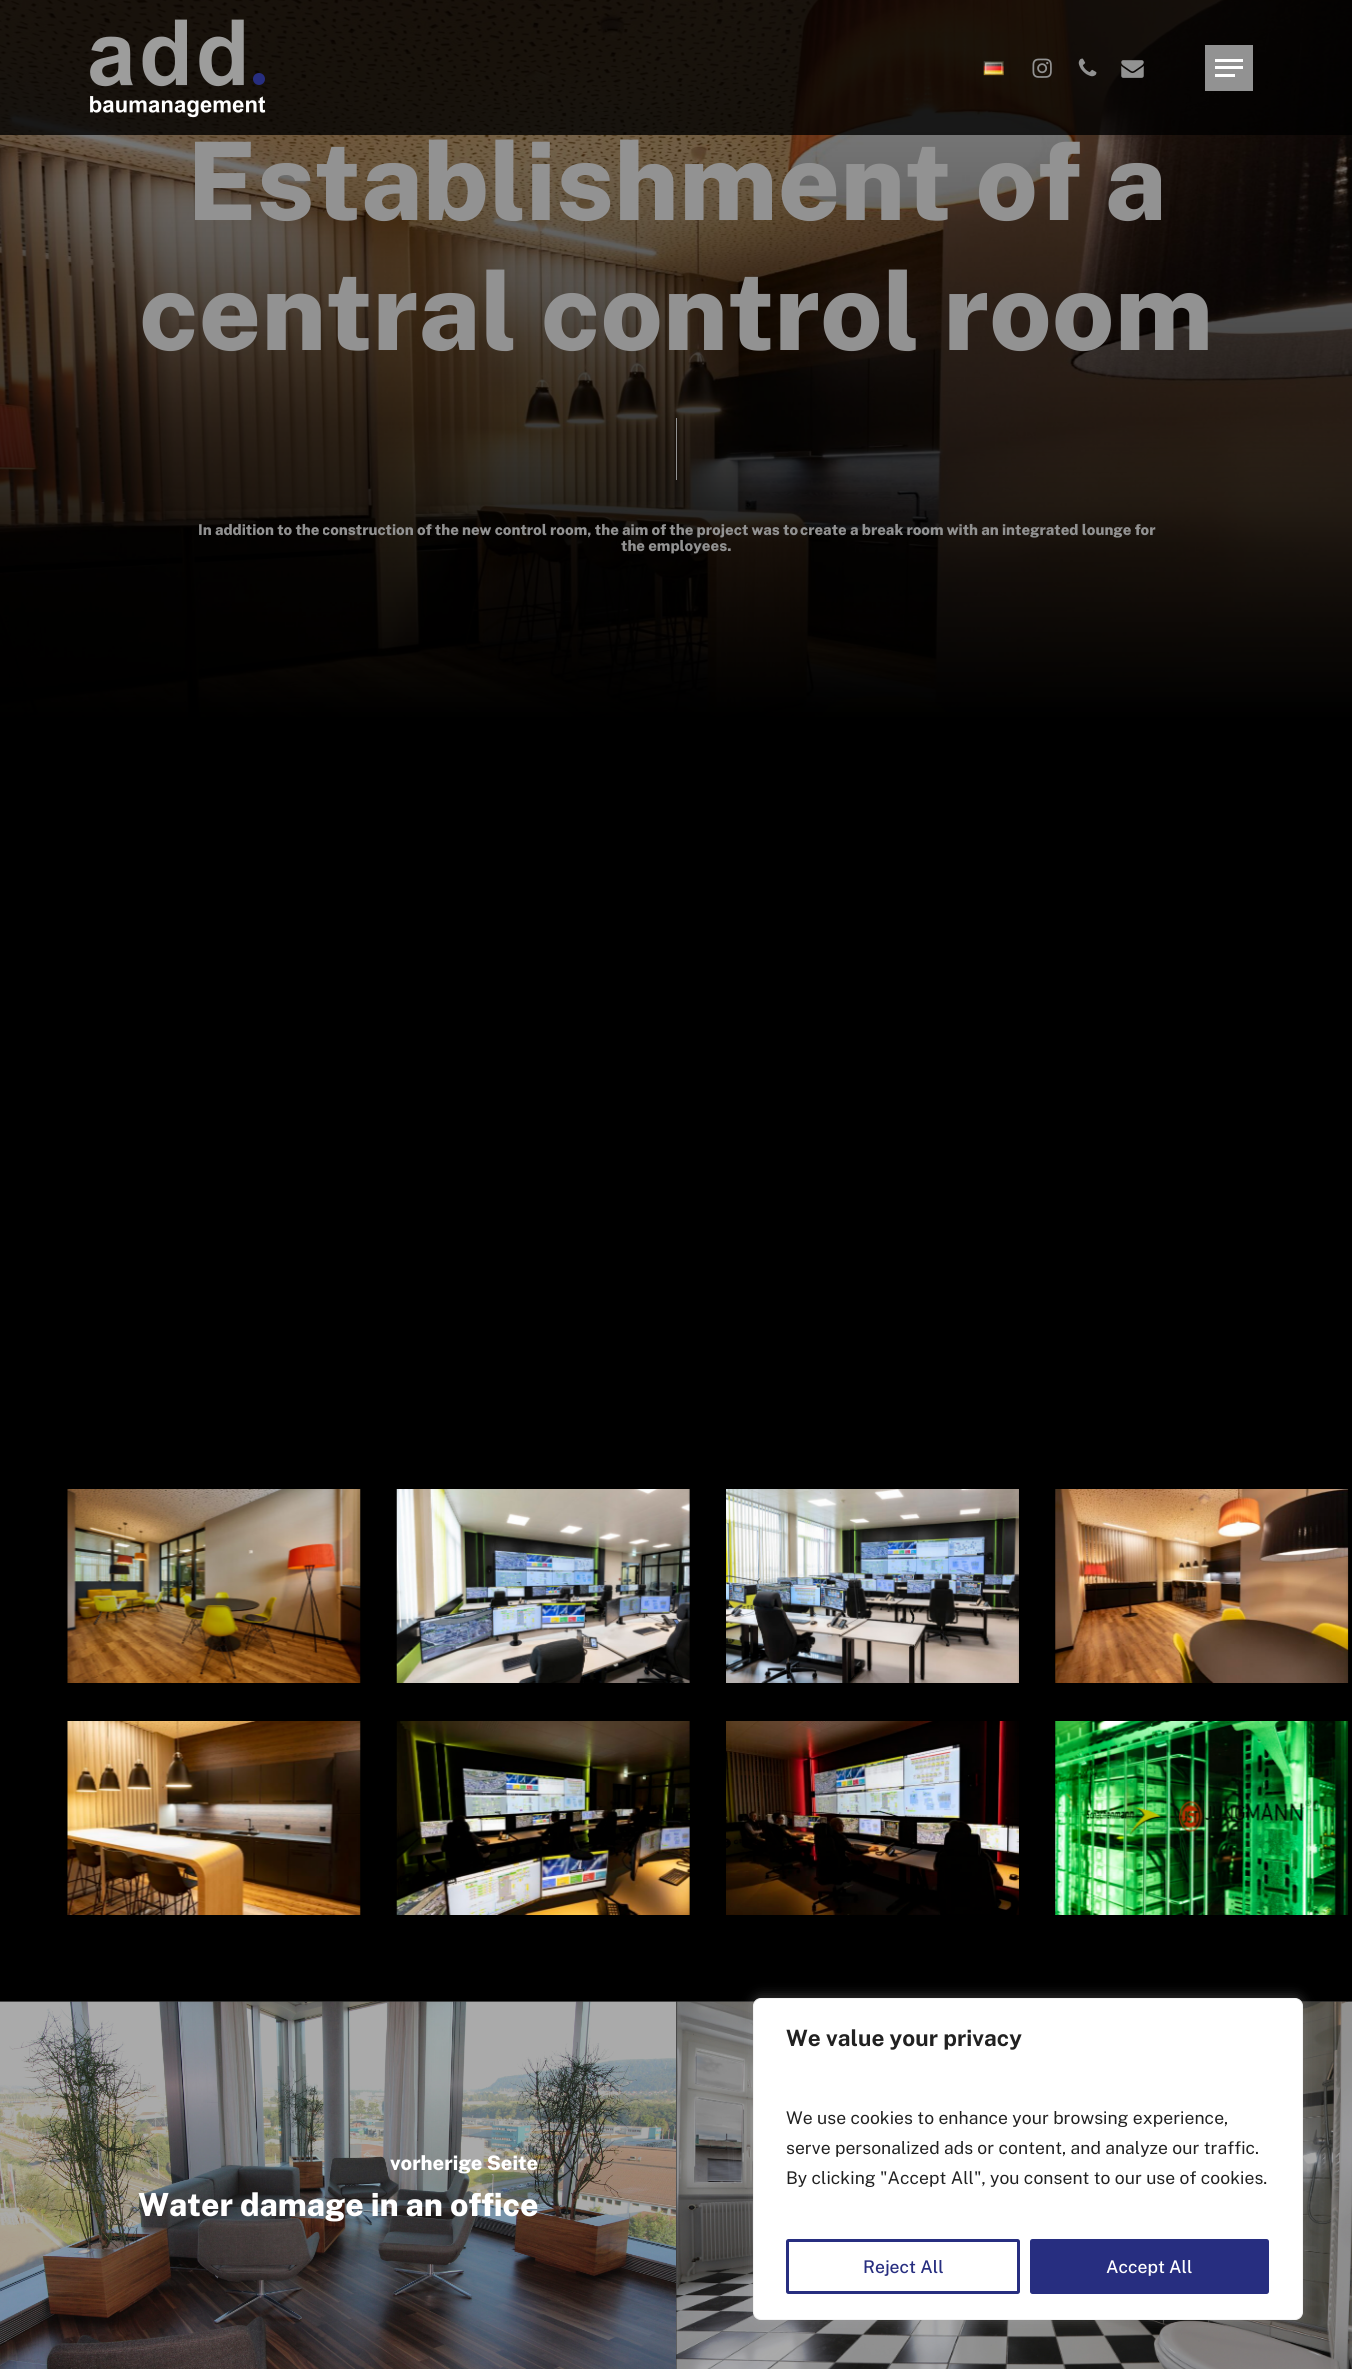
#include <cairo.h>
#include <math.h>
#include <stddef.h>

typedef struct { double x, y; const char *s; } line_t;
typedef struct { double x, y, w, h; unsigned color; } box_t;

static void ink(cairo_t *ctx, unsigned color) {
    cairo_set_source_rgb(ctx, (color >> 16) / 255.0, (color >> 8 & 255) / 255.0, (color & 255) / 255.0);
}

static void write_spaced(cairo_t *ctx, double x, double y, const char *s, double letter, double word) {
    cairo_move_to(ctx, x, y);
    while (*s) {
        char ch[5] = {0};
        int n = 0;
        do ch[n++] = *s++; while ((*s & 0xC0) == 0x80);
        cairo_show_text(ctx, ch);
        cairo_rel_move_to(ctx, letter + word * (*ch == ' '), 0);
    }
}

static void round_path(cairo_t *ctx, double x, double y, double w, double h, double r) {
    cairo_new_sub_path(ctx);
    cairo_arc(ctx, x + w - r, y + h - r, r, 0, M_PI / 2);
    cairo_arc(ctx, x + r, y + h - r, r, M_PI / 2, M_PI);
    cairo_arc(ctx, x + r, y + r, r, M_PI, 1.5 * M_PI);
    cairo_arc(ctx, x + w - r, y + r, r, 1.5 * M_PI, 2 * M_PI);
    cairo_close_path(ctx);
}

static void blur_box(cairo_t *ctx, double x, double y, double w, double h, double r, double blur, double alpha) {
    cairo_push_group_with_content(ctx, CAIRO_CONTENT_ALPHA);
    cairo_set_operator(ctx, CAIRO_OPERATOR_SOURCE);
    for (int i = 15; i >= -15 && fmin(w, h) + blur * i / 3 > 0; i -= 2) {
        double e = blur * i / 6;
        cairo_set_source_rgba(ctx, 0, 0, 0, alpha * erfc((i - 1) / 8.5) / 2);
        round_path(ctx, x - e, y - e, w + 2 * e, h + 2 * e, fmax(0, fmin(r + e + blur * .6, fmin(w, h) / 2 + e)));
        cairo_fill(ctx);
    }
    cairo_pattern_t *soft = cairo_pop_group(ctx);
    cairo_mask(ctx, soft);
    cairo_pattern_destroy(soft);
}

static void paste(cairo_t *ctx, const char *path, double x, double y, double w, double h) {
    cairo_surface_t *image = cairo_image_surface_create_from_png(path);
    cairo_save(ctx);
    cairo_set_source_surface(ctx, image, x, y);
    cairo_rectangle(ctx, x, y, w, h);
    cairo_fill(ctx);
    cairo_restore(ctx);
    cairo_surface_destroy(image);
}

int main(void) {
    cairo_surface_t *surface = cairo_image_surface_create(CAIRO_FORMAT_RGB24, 1352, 2369);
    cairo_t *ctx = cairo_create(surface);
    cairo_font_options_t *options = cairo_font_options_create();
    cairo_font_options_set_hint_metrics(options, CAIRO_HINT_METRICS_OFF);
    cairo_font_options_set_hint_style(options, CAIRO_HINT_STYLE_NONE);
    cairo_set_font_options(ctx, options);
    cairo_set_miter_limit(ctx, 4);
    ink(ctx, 0x000000);
    cairo_paint(ctx);
    paste(ctx, "media/6.png", 0, 0, 1352, 719);
    cairo_set_source_rgba(ctx, 0, 0, 0, 0.8);
    cairo_rectangle(ctx, 0, 0, 1352, 135);
    cairo_fill(ctx);
    paste(ctx, "media/1.png", 90, 19, 176, 99);
    paste(ctx, "media/2.png", 983, 61, 21, 15);
    paste(ctx, "media/3.png", 1032, 58, 20, 20);
    paste(ctx, "media/4.png", 1078, 58, 19, 19);
    paste(ctx, "media/5.png", 1121, 60, 23, 18);
    {
        static const box_t items[] = {
            {1205, 45, 48, 46, 0x929292},
            {1215, 59, 28, 3, 0xFFFFFF},
            {1215, 74, 20, 3, 0xFFFFFF},
            {1215, 66, 28, 3, 0xFFFFFF},
        };
        for (size_t i = 0; i < sizeof items / sizeof *items; i++) {
            ink(ctx, items[i].color);
            cairo_rectangle(ctx, items[i].x, items[i].y, items[i].w, items[i].h);
            cairo_fill(ctx);
        }
    }
    cairo_select_font_face(ctx, "Public Sans ExtraBold", CAIRO_FONT_SLANT_NORMAL, CAIRO_FONT_WEIGHT_NORMAL);
    cairo_set_font_size(ctx, 108.25);
    ink(ctx, 0x929292);
    cairo_move_to(ctx, 187, 220);
    cairo_show_text(ctx, "Establishment of a");
    cairo_move_to(ctx, 139, 350);
    cairo_show_text(ctx, "central control room");
    cairo_rectangle(ctx, 676, 418, 1, 62);
    cairo_fill(ctx);
    cairo_set_font_size(ctx, 14.9);
    cairo_move_to(ctx, 198, 535);
    cairo_show_text(ctx, "In addition to the");
    cairo_save(ctx);
    cairo_rectangle(ctx, 323, 523, 91, 16);
    cairo_clip(ctx);
    cairo_move_to(ctx, 322, 535);
    cairo_show_text(ctx, "construction");
    cairo_restore(ctx);
    cairo_move_to(ctx, 417, 535);
    cairo_show_text(ctx, "of the new control room, the aim of the project was to");
    cairo_save(ctx);
    cairo_rectangle(ctx, 800, 523, 46, 16);
    cairo_clip(ctx);
    cairo_move_to(ctx, 800, 535);
    cairo_show_text(ctx, "create");
    cairo_restore(ctx);
    cairo_move_to(ctx, 850, 535);
    cairo_show_text(ctx, "a break room with an integrated lounge for");
    cairo_move_to(ctx, 621, 551);
    cairo_show_text(ctx, "the employees.");
    paste(ctx, "media/7.png", 67, 1489, 294, 194);
    paste(ctx, "media/8.png", 396, 1489, 294, 194);
    paste(ctx, "media/9.png", 726, 1489, 293, 194);
    paste(ctx, "media/10.png", 1055, 1489, 294, 194);
    paste(ctx, "media/11.png", 67, 1721, 294, 194);
    paste(ctx, "media/12.png", 396, 1721, 294, 194);
    paste(ctx, "media/13.png", 726, 1721, 293, 194);
    paste(ctx, "media/14.png", 1055, 1721, 294, 194);
    ink(ctx, 0x262626);
    cairo_rectangle(ctx, 0, 2001, 676, 1);
    cairo_fill(ctx);
    paste(ctx, "media/15.png", 0, 2001, 676, 368);
    cairo_set_font_size(ctx, 20);
    ink(ctx, 0xFFFFFF);
    cairo_move_to(ctx, 390, 2170);
    cairo_show_text(ctx, "vorherige Seite");
    cairo_set_font_size(ctx, 31.9);
    cairo_move_to(ctx, 138, 2216);
    cairo_show_text(ctx, "Water damage in an office");
    ink(ctx, 0x333333);
    cairo_rectangle(ctx, 676, 2001, 676, 368);
    cairo_fill(ctx);
    paste(ctx, "media/16.png", 676, 2001, 676, 368);
    cairo_set_source_rgba(ctx, 0.051, 0.051, 0.051, 0.35);
    cairo_rectangle(ctx, 676, 2001, 676, 368);
    cairo_fill(ctx);
    ink(ctx, 0xACABAB);
    blur_box(ctx, 753, 1996, 550, 323, 8, 6, 0.3);
    ink(ctx, 0xFFFFFF);
    round_path(ctx, 753.5, 1998.5, 549, 321, 7.5);
    cairo_fill_preserve(ctx);
    ink(ctx, 0xF4F4F4);
    cairo_set_line_width(ctx, 1);
    cairo_stroke(ctx);
    cairo_select_font_face(ctx, "Public Sans", CAIRO_FONT_SLANT_NORMAL, CAIRO_FONT_WEIGHT_BOLD);
    cairo_set_font_size(ctx, 22.5);
    ink(ctx, 0x212121);
    write_spaced(ctx, 786, 2046, "We value your privacy", 0.05, 0);
    cairo_select_font_face(ctx, "Public Sans", CAIRO_FONT_SLANT_NORMAL, CAIRO_FONT_WEIGHT_NORMAL);
    cairo_set_font_size(ctx, 17.5);
    {
        static const line_t items[] = {
            {786, 2124, "We use cookies to enhance your browsing experience,"},
            {786, 2154, "serve personalized ads or content, and analyze our traffic."},
            {786, 2184, "By clicking \"Accept All\", you consent to our use of cookies."},
        };
        for (size_t i = 0; i < sizeof items / sizeof *items; i++) {
            write_spaced(ctx, items[i].x, items[i].y, items[i].s, 0.05, 0);
        }
    }
    round_path(ctx, 787.5, 2240.5, 231, 52, 1);
    ink(ctx, 0x272E80);
    cairo_set_line_width(ctx, 3);
    cairo_stroke(ctx);
    cairo_select_font_face(ctx, "Public Sans Medium", CAIRO_FONT_SLANT_NORMAL, CAIRO_FONT_WEIGHT_NORMAL);
    cairo_move_to(ctx, 863, 2273);
    cairo_show_text(ctx, "Reject All");
    round_path(ctx, 1031.5, 2240.5, 236, 52, 1);
    cairo_fill_preserve(ctx);
    cairo_stroke(ctx);
    ink(ctx, 0xFFFFFF);
    cairo_move_to(ctx, 1106, 2273);
    cairo_show_text(ctx, "Accept All");
    cairo_surface_write_to_png(surface, "image.png");
    cairo_font_options_destroy(options);
    cairo_destroy(ctx);
    cairo_surface_destroy(surface);
    return 0;
}
